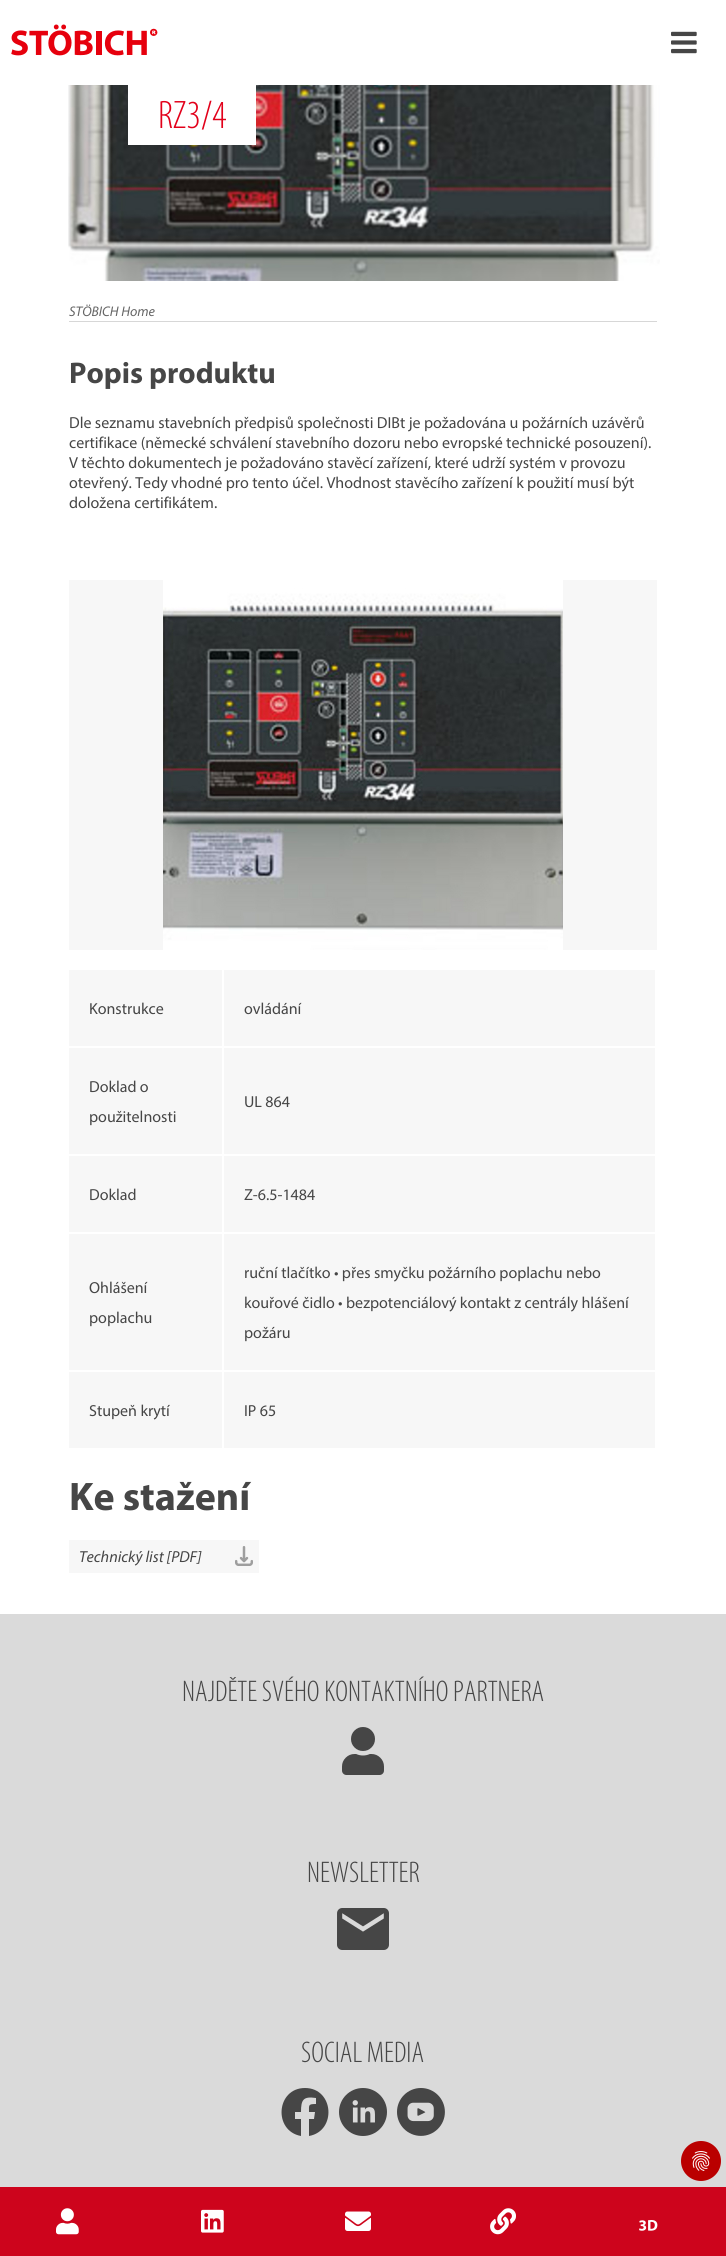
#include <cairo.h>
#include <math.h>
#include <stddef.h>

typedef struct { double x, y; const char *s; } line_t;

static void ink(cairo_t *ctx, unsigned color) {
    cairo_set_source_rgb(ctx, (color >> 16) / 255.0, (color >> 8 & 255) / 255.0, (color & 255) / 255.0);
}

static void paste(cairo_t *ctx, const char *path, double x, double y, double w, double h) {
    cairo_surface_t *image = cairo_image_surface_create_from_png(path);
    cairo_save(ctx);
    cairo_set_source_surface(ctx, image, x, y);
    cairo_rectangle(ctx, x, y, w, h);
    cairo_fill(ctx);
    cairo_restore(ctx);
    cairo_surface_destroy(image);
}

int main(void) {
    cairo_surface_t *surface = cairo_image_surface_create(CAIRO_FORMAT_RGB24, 726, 2256);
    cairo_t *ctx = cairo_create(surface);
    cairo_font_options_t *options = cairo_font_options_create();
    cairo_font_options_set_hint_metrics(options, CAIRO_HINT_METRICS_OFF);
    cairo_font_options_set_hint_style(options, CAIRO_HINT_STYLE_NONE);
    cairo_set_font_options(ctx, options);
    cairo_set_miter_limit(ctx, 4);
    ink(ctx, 0xFFFFFF);
    cairo_paint(ctx);
    paste(ctx, "media/1.png", 11, 24, 147, 32);
    paste(ctx, "media/2.png", 671, 31, 26, 23);
    paste(ctx, "media/3.png", 68, 85, 592, 196);
    ink(ctx, 0xFFFFFF);
    cairo_rectangle(ctx, 128, 85, 128, 60);
    cairo_fill(ctx);
    cairo_select_font_face(ctx, "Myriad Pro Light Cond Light", CAIRO_FONT_SLANT_NORMAL, CAIRO_FONT_WEIGHT_NORMAL);
    cairo_set_font_size(ctx, 40);
    ink(ctx, 0xE2001A);
    cairo_move_to(ctx, 158, 128);
    cairo_show_text(ctx, "RZ3/4");
    ink(ctx, 0xD7D7D7);
    cairo_rectangle(ctx, 69, 321, 588, 1);
    cairo_fill(ctx);
    cairo_select_font_face(ctx, "Myriad", CAIRO_FONT_SLANT_ITALIC, CAIRO_FONT_WEIGHT_NORMAL);
    cairo_set_font_size(ctx, 14);
    ink(ctx, 0x656565);
    cairo_move_to(ctx, 69, 316);
    cairo_show_text(ctx, "STÖBICH Home");
    cairo_select_font_face(ctx, "Myriad", CAIRO_FONT_SLANT_NORMAL, CAIRO_FONT_WEIGHT_BOLD);
    cairo_set_font_size(ctx, 30);
    ink(ctx, 0x464646);
    cairo_move_to(ctx, 69, 383);
    cairo_show_text(ctx, "Popis produktu");
    cairo_select_font_face(ctx, "Myriad", CAIRO_FONT_SLANT_NORMAL, CAIRO_FONT_WEIGHT_NORMAL);
    cairo_set_font_size(ctx, 16);
    {
        static const line_t items[] = {
            {69, 428, "Dle seznamu stavebních předpisů společnosti DIBt je požadována u požárních uzávěrů"},
            {69, 448, "certifikace (německé schválení stavebního dozoru nebo evropské technické posouzení)."},
            {69, 468, "V těchto dokumentech je požadováno stavěcí zařízení, které udrží systém v provozu"},
            {69, 488, "otevřený. Tedy vhodné pro tento účel. Vhodnost stavěcího zařízení k použití musí být"},
            {69, 508, "doložena certifikátem."},
        };
        for (size_t i = 0; i < sizeof items / sizeof *items; i++) {
            cairo_move_to(ctx, items[i].x, items[i].y);
            cairo_show_text(ctx, items[i].s);
        }
    }
    ink(ctx, 0xF7F7F7);
    cairo_rectangle(ctx, 69, 580, 588, 370);
    cairo_fill(ctx);
    paste(ctx, "media/4.png", 163, 580, 400, 370);
    cairo_rectangle(ctx, 69, 970, 153, 76);
    cairo_fill(ctx);
    ink(ctx, 0x464646);
    cairo_move_to(ctx, 89, 1014);
    cairo_show_text(ctx, "Konstrukce");
    ink(ctx, 0xF7F7F7);
    cairo_rectangle(ctx, 224, 970, 431, 76);
    cairo_fill(ctx);
    ink(ctx, 0x464646);
    cairo_move_to(ctx, 244, 1014);
    cairo_show_text(ctx, "ovládání");
    ink(ctx, 0xF7F7F7);
    cairo_rectangle(ctx, 69, 1048, 153, 106);
    cairo_fill(ctx);
    ink(ctx, 0x464646);
    cairo_move_to(ctx, 89, 1092);
    cairo_show_text(ctx, "Doklad o");
    cairo_move_to(ctx, 89, 1122);
    cairo_show_text(ctx, "použitelnosti");
    ink(ctx, 0xF7F7F7);
    cairo_rectangle(ctx, 224, 1048, 431, 106);
    cairo_fill(ctx);
    ink(ctx, 0x464646);
    cairo_move_to(ctx, 244, 1107);
    cairo_show_text(ctx, "UL 864");
    ink(ctx, 0xF7F7F7);
    cairo_rectangle(ctx, 69, 1156, 153, 76);
    cairo_fill(ctx);
    ink(ctx, 0x464646);
    cairo_move_to(ctx, 89, 1200);
    cairo_show_text(ctx, "Doklad");
    ink(ctx, 0xF7F7F7);
    cairo_rectangle(ctx, 224, 1156, 431, 76);
    cairo_fill(ctx);
    ink(ctx, 0x464646);
    cairo_move_to(ctx, 244, 1200);
    cairo_show_text(ctx, "Z-6.5-1484");
    ink(ctx, 0xF7F7F7);
    cairo_rectangle(ctx, 69, 1234, 153, 136);
    cairo_fill(ctx);
    ink(ctx, 0x464646);
    cairo_move_to(ctx, 89, 1293);
    cairo_show_text(ctx, "Ohlášení");
    cairo_move_to(ctx, 89, 1323);
    cairo_show_text(ctx, "poplachu");
    ink(ctx, 0xF7F7F7);
    cairo_rectangle(ctx, 224, 1234, 431, 136);
    cairo_fill(ctx);
    ink(ctx, 0x464646);
    {
        static const line_t items[] = {
            {244, 1278, "ruční tlačítko • přes smyčku požárního poplachu nebo"},
            {244, 1308, "kouřové čidlo • bezpotenciálový kontakt z centrály hlášení"},
            {244, 1338, "požáru"},
        };
        for (size_t i = 0; i < sizeof items / sizeof *items; i++) {
            cairo_move_to(ctx, items[i].x, items[i].y);
            cairo_show_text(ctx, items[i].s);
        }
    }
    ink(ctx, 0xF7F7F7);
    cairo_rectangle(ctx, 69, 1372, 153, 76);
    cairo_fill(ctx);
    ink(ctx, 0x464646);
    cairo_move_to(ctx, 89, 1416);
    cairo_show_text(ctx, "Stupeň krytí");
    ink(ctx, 0xF7F7F7);
    cairo_rectangle(ctx, 224, 1372, 431, 76);
    cairo_fill(ctx);
    ink(ctx, 0x464646);
    cairo_move_to(ctx, 244, 1416);
    cairo_show_text(ctx, "IP 65");
    cairo_select_font_face(ctx, "Myriad", CAIRO_FONT_SLANT_NORMAL, CAIRO_FONT_WEIGHT_BOLD);
    cairo_set_font_size(ctx, 40);
    cairo_move_to(ctx, 69, 1510);
    cairo_show_text(ctx, "Ke stažení");
    ink(ctx, 0xF7F7F7);
    cairo_rectangle(ctx, 69, 1540, 190, 33);
    cairo_fill(ctx);
    paste(ctx, "media/5.png", 235, 1546, 18, 20);
    cairo_select_font_face(ctx, "Myriad", CAIRO_FONT_SLANT_ITALIC, CAIRO_FONT_WEIGHT_NORMAL);
    cairo_set_font_size(ctx, 16);
    ink(ctx, 0x464646);
    cairo_move_to(ctx, 79, 1562);
    cairo_show_text(ctx, "Technický list [PDF]");
    ink(ctx, 0xDADADA);
    cairo_rectangle(ctx, 0, 1614, 726, 573);
    cairo_fill(ctx);
    cairo_select_font_face(ctx, "Myriad Pro Light Cond Light", CAIRO_FONT_SLANT_NORMAL, CAIRO_FONT_WEIGHT_NORMAL);
    cairo_set_font_size(ctx, 30);
    ink(ctx, 0x464646);
    cairo_move_to(ctx, 182, 1701);
    cairo_show_text(ctx, "NAJDĚTE SVÉHO KONTAKTNÍHO PARTNERA");
    paste(ctx, "media/6.png", 342, 1727, 42, 48);
    cairo_move_to(ctx, 307, 1882);
    cairo_show_text(ctx, "NEWSLETTER");
    paste(ctx, "media/7.png", 337, 1908, 52, 42);
    cairo_move_to(ctx, 301, 2062);
    cairo_show_text(ctx, "SOCIAL MEDIA");
    cairo_new_path(ctx);
    cairo_move_to(ctx, 305, 2088);
    cairo_curve_to(ctx, 276, 2088, 273, 2131, 301, 2136);
    cairo_line_to(ctx, 301, 2119);
    cairo_line_to(ctx, 295, 2119);
    cairo_line_to(ctx, 295, 2112);
    cairo_line_to(ctx, 301, 2112);
    cairo_curve_to(ctx, 301, 2100, 303, 2096, 316, 2098);
    cairo_line_to(ctx, 316, 2104);
    cairo_curve_to(ctx, 308, 2104, 309, 2105, 309, 2112);
    cairo_line_to(ctx, 315, 2112);
    cairo_line_to(ctx, 314, 2119);
    cairo_line_to(ctx, 309, 2119);
    cairo_line_to(ctx, 309, 2136);
    cairo_curve_to(ctx, 337, 2131, 334, 2088, 305, 2088);
    cairo_close_path(ctx);
    cairo_fill(ctx);
    paste(ctx, "media/8.png", 339, 2088, 48, 48);
    paste(ctx, "media/9.png", 397, 2088, 48, 48);
    ink(ctx, 0xCD041C);
    cairo_rectangle(ctx, 0, 2187, 726, 69);
    cairo_fill(ctx);
    paste(ctx, "media/10.png", 56, 2208, 23, 27);
    paste(ctx, "media/11.png", 201, 2209, 23, 24);
    paste(ctx, "media/12.png", 345, 2211, 26, 20);
    paste(ctx, "media/13.png", 490, 2208, 26, 27);
    paste(ctx, "media/14.png", 639, 2220, 19, 11);
    ink(ctx, 0xBA0000);
    cairo_arc(ctx, 701, 2161, 20, 0, 2 * M_PI);
    cairo_fill(ctx);
    paste(ctx, "media/15.png", 692, 2151, 18, 20);
    cairo_surface_write_to_png(surface, "image.png");
    cairo_font_options_destroy(options);
    cairo_destroy(ctx);
    cairo_surface_destroy(surface);
    return 0;
}
